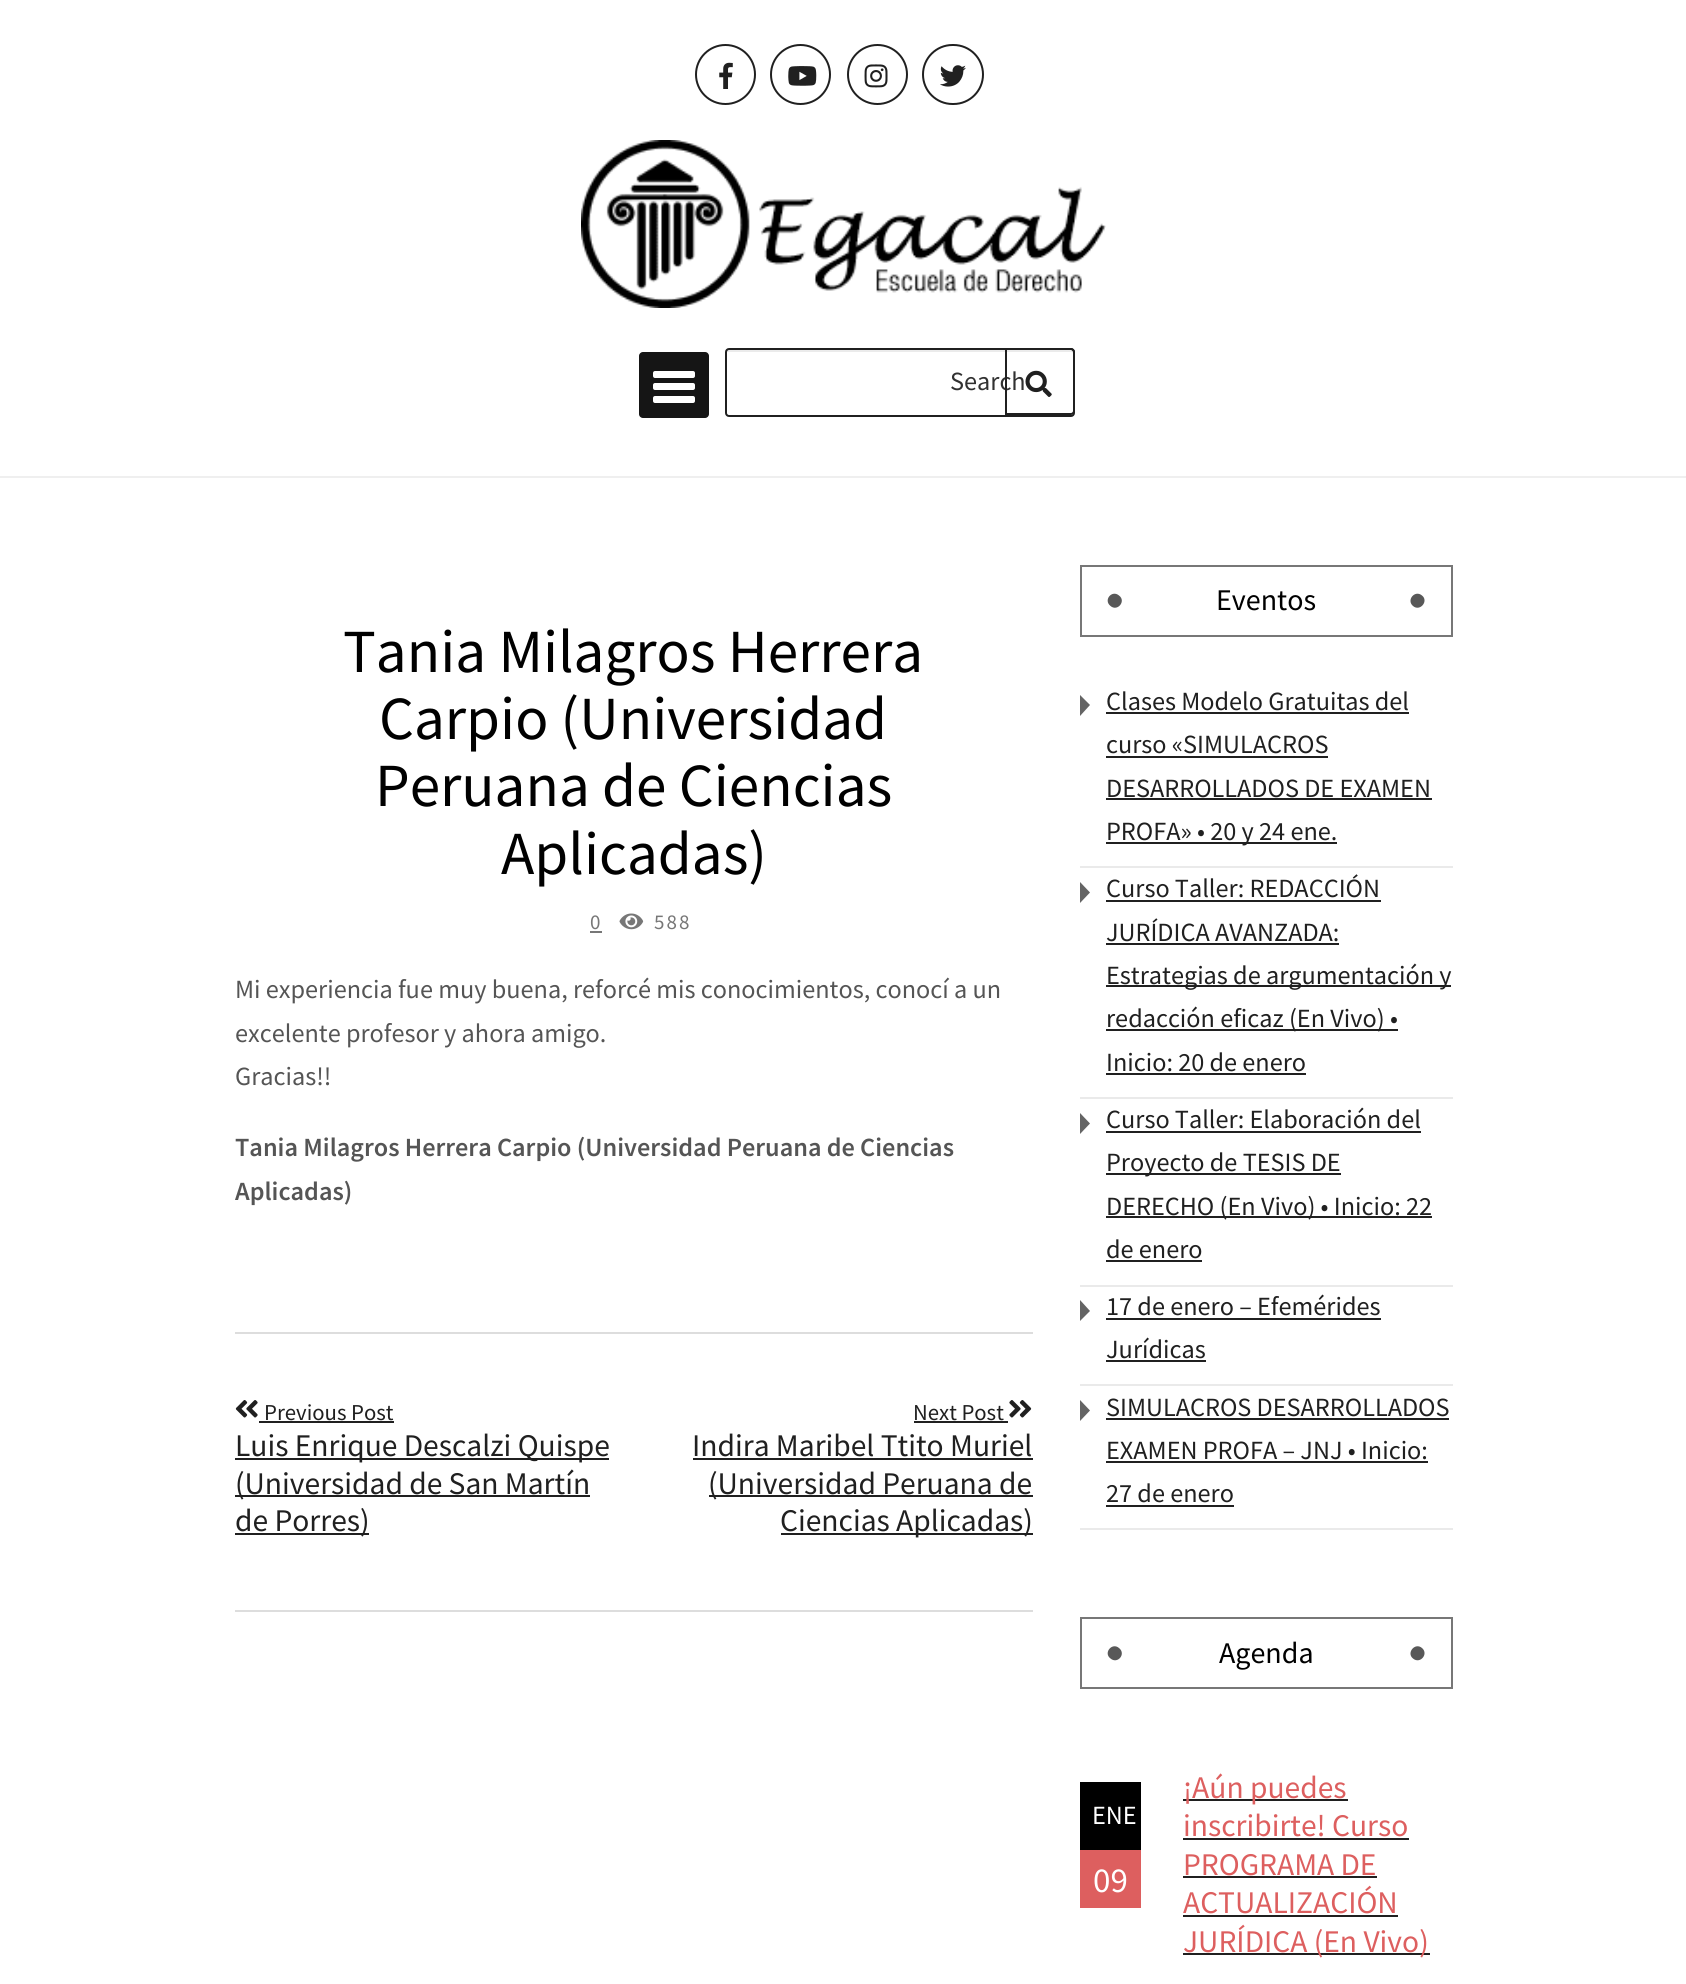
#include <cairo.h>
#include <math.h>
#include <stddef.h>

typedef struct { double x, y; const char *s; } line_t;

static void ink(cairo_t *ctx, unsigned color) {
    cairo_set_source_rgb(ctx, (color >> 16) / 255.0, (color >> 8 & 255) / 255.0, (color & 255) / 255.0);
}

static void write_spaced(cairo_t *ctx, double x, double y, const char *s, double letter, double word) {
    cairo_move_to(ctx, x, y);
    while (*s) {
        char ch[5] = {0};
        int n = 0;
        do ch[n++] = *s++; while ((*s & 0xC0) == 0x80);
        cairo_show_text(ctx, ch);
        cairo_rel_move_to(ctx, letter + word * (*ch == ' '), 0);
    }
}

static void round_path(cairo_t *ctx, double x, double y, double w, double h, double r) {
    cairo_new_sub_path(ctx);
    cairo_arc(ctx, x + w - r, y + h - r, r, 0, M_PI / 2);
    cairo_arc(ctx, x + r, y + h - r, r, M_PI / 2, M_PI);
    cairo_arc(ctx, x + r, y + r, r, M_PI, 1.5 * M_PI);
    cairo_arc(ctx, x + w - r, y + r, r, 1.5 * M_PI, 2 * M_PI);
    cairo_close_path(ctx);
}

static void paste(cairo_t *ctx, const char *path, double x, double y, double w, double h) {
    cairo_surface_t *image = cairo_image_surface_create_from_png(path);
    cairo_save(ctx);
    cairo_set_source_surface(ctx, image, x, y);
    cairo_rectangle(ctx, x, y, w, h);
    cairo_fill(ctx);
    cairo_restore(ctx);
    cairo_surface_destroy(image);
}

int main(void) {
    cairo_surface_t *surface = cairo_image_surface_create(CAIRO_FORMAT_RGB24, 1686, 1984);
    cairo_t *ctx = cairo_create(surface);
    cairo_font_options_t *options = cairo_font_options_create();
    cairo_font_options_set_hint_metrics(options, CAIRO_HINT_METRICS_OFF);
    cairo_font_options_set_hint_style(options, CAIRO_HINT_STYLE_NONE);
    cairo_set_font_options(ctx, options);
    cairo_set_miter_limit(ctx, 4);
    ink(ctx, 0xFFFFFF);
    cairo_paint(ctx);
    ink(ctx, 0xEFEFEF);
    cairo_rectangle(ctx, 0, 476, 1686, 2);
    cairo_fill(ctx);
    cairo_arc(ctx, 725.5, 74.5, 29.5, 0, 2 * M_PI);
    ink(ctx, 0x202020);
    cairo_stroke(ctx);
    paste(ctx, "media/1.png", 719, 62, 14, 27);
    cairo_arc(ctx, 800.5, 74.5, 29.5, 0, 2 * M_PI);
    cairo_stroke(ctx);
    paste(ctx, "media/2.png", 788, 66, 29, 20);
    cairo_arc(ctx, 877.5, 74.5, 29.5, 0, 2 * M_PI);
    cairo_stroke(ctx);
    paste(ctx, "media/3.png", 864, 64, 24, 24);
    round_path(ctx, 923, 45, 60, 59, 29.5);
    cairo_stroke(ctx);
    paste(ctx, "media/4.png", 940, 65, 26, 22);
    paste(ctx, "media/5.png", 581, 140, 525, 168);
    ink(ctx, 0x151515);
    round_path(ctx, 639, 352, 70, 66, 4);
    cairo_fill(ctx);
    ink(ctx, 0xFFFFFF);
    round_path(ctx, 653, 371, 42, 7, 2);
    cairo_fill(ctx);
    round_path(ctx, 653, 383, 42, 7, 2);
    cairo_fill(ctx);
    round_path(ctx, 653, 396, 42, 7, 2);
    cairo_fill(ctx);
    ink(ctx, 0xEBEBEB);
    cairo_new_path(ctx);
    cairo_move_to(ctx, 728, 352);
    cairo_line_to(ctx, 1071, 352);
    cairo_curve_to(ctx, 1072, 352, 1073, 353, 1073, 354);
    cairo_line_to(ctx, 1073, 352);
    cairo_curve_to(ctx, 1073, 351, 1072, 350, 1071, 350);
    cairo_line_to(ctx, 728, 350);
    cairo_curve_to(ctx, 727, 350, 726, 351, 726, 352);
    cairo_line_to(ctx, 726, 354);
    cairo_curve_to(ctx, 726, 353, 727, 352, 728, 352);
    cairo_close_path(ctx);
    cairo_fill(ctx);
    round_path(ctx, 726, 349, 348, 67, 3);
    ink(ctx, 0x202020);
    cairo_stroke(ctx);
    cairo_select_font_face(ctx, "Source Sans Pro", CAIRO_FONT_SLANT_NORMAL, CAIRO_FONT_WEIGHT_NORMAL);
    cairo_set_font_size(ctx, 26.25);
    ink(ctx, 0x313131);
    cairo_move_to(ctx, 950, 390);
    cairo_show_text(ctx, "Search");
    cairo_new_path(ctx);
    cairo_move_to(ctx, 1006, 349);
    cairo_line_to(ctx, 1071, 349);
    cairo_curve_to(ctx, 1072.5, 349, 1074, 350.5, 1074, 352);
    cairo_line_to(ctx, 1074, 411);
    cairo_curve_to(ctx, 1074, 412.5, 1072.5, 414, 1071, 414);
    cairo_line_to(ctx, 1006, 414);
    cairo_close_path(ctx);
    ink(ctx, 0x202020);
    cairo_stroke(ctx);
    paste(ctx, "media/6.png", 1025, 370, 27, 27);
    cairo_set_font_size(ctx, 61.25);
    ink(ctx, 0x000000);
    {
        static const line_t items[] = {
            {343, 672, "Tania Milagros Herrera"},
            {379, 739, "Carpio (Universidad"},
            {375, 806, "Peruana de Ciencias"},
            {501, 874, "Aplicadas)"},
        };
        for (size_t i = 0; i < sizeof items / sizeof *items; i++) {
            cairo_move_to(ctx, items[i].x, items[i].y);
            cairo_show_text(ctx, items[i].s);
        }
    }
    cairo_set_font_size(ctx, 21);
    ink(ctx, 0x777777);
    write_spaced(ctx, 590, 929, "0", 2, 0);
    cairo_rectangle(ctx, 590, 931, 12, 2);
    cairo_fill(ctx);
    paste(ctx, "media/7.png", 619, 913, 25, 17);
    write_spaced(ctx, 654, 929, "588", 2, 0);
    cairo_set_font_size(ctx, 26.25);
    ink(ctx, 0x555555);
    {
        static const line_t items[] = {
            {235, 998, "Mi experiencia fue muy buena, reforcé mis conocimientos, conocí a un"},
            {235, 1042, "excelente profesor y ahora amigo."},
            {235, 1085, "Gracias!!"},
        };
        for (size_t i = 0; i < sizeof items / sizeof *items; i++) {
            cairo_move_to(ctx, items[i].x, items[i].y);
            cairo_show_text(ctx, items[i].s);
        }
    }
    cairo_select_font_face(ctx, "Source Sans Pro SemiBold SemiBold", CAIRO_FONT_SLANT_NORMAL, CAIRO_FONT_WEIGHT_NORMAL);
    cairo_move_to(ctx, 235, 1156);
    cairo_show_text(ctx, "Tania Milagros Herrera Carpio (Universidad Peruana de Ciencias");
    cairo_move_to(ctx, 235, 1200);
    cairo_show_text(ctx, "Aplicadas)");
    ink(ctx, 0xDDDDDD);
    cairo_rectangle(ctx, 235, 1332, 798, 2);
    cairo_fill(ctx);
    cairo_rectangle(ctx, 235, 1610, 798, 2);
    cairo_fill(ctx);
    paste(ctx, "media/8.png", 235, 1400, 23, 18);
    cairo_select_font_face(ctx, "Source Sans Pro", CAIRO_FONT_SLANT_NORMAL, CAIRO_FONT_WEIGHT_NORMAL);
    cairo_set_font_size(ctx, 22.75);
    ink(ctx, 0x202020);
    cairo_move_to(ctx, 264, 1420);
    cairo_show_text(ctx, "Previous Post");
    cairo_rectangle(ctx, 259, 1421, 135, 2);
    cairo_fill(ctx);
    cairo_rectangle(ctx, 235, 1458, 374, 2);
    cairo_fill(ctx);
    cairo_set_font_size(ctx, 31.5);
    cairo_move_to(ctx, 235, 1456);
    cairo_show_text(ctx, "Luis Enrique Descalzi Quispe");
    cairo_rectangle(ctx, 235, 1495, 355, 2);
    cairo_fill(ctx);
    cairo_move_to(ctx, 235, 1494);
    cairo_show_text(ctx, "(Universidad de San Martín");
    cairo_rectangle(ctx, 235, 1533, 134, 2);
    cairo_fill(ctx);
    cairo_move_to(ctx, 235, 1531);
    cairo_show_text(ctx, "de Porres)");
    cairo_set_font_size(ctx, 22.75);
    cairo_move_to(ctx, 913, 1420);
    cairo_show_text(ctx, "Next Post");
    cairo_rectangle(ctx, 914, 1421, 94, 2);
    cairo_fill(ctx);
    paste(ctx, "media/9.png", 1009, 1400, 23, 18);
    cairo_set_font_size(ctx, 31.5);
    cairo_move_to(ctx, 692, 1456);
    cairo_show_text(ctx, "Indira Maribel Ttito Muriel");
    cairo_rectangle(ctx, 693, 1458, 340, 2);
    cairo_fill(ctx);
    cairo_rectangle(ctx, 709, 1495, 324, 2);
    cairo_fill(ctx);
    cairo_move_to(ctx, 708, 1494);
    cairo_show_text(ctx, "(Universidad Peruana de");
    cairo_rectangle(ctx, 781, 1533, 252, 2);
    cairo_fill(ctx);
    cairo_move_to(ctx, 780, 1531);
    cairo_show_text(ctx, "Ciencias Aplicadas)");
    cairo_rectangle(ctx, 1081, 566, 371, 70);
    ink(ctx, 0x777777);
    cairo_stroke(ctx);
    ink(ctx, 0x585858);
    cairo_new_path(ctx);
    cairo_move_to(ctx, 1119, 595.5);
    cairo_curve_to(ctx, 1126.5, 601, 1117.5, 612, 1110.5, 606);
    cairo_curve_to(ctx, 1103, 600, 1112, 589.5, 1119, 595.5);
    cairo_close_path(ctx);
    cairo_fill(ctx);
    cairo_set_font_size(ctx, 30);
    ink(ctx, 0x000000);
    cairo_move_to(ctx, 1216, 610);
    cairo_show_text(ctx, "Eventos");
    ink(ctx, 0x585858);
    cairo_new_path(ctx);
    cairo_move_to(ctx, 1422, 595.5);
    cairo_curve_to(ctx, 1429, 601, 1420, 612, 1413, 606);
    cairo_curve_to(ctx, 1406, 600, 1415, 589.5, 1422, 595.5);
    cairo_close_path(ctx);
    cairo_fill(ctx);
    ink(ctx, 0xEAEAEA);
    cairo_rectangle(ctx, 1080, 866, 373, 2);
    cairo_fill(ctx);
    ink(ctx, 0x646464);
    cairo_new_path(ctx);
    cairo_move_to(ctx, 1080, 716);
    cairo_line_to(ctx, 1080, 695);
    cairo_line_to(ctx, 1090, 705);
    cairo_close_path(ctx);
    cairo_fill(ctx);
    cairo_set_font_size(ctx, 26.25);
    ink(ctx, 0x202020);
    cairo_move_to(ctx, 1106, 710);
    cairo_show_text(ctx, "Clases Modelo Gratuitas del");
    cairo_rectangle(ctx, 1106, 712, 303, 2);
    cairo_fill(ctx);
    cairo_move_to(ctx, 1106, 753);
    cairo_show_text(ctx, "curso «SIMULACROS");
    cairo_rectangle(ctx, 1106, 756, 222, 2);
    cairo_fill(ctx);
    cairo_move_to(ctx, 1106, 797);
    cairo_show_text(ctx, "DESARROLLADOS DE EXAMEN");
    cairo_rectangle(ctx, 1106, 798, 326, 2);
    cairo_fill(ctx);
    cairo_rectangle(ctx, 1106, 842, 231, 2);
    cairo_fill(ctx);
    cairo_move_to(ctx, 1106, 840);
    cairo_show_text(ctx, "PROFA» • 20 y 24 ene.");
    ink(ctx, 0xEAEAEA);
    cairo_rectangle(ctx, 1080, 1097, 373, 2);
    cairo_fill(ctx);
    ink(ctx, 0x646464);
    cairo_new_path(ctx);
    cairo_move_to(ctx, 1080, 903);
    cairo_line_to(ctx, 1080, 882);
    cairo_line_to(ctx, 1090, 892.5);
    cairo_close_path(ctx);
    cairo_fill(ctx);
    ink(ctx, 0x202020);
    cairo_move_to(ctx, 1106, 897);
    cairo_show_text(ctx, "Curso Taller: REDACCIÓN");
    cairo_rectangle(ctx, 1106, 900, 275, 2);
    cairo_fill(ctx);
    cairo_move_to(ctx, 1106, 941);
    cairo_show_text(ctx, "JURÍDICA AVANZADA:");
    cairo_rectangle(ctx, 1106, 943, 233, 2);
    cairo_fill(ctx);
    cairo_rectangle(ctx, 1106, 985, 345, 2);
    cairo_fill(ctx);
    cairo_move_to(ctx, 1106, 984);
    cairo_show_text(ctx, "Estrategias de argumentación y");
    cairo_rectangle(ctx, 1106, 1029, 292, 2);
    cairo_fill(ctx);
    cairo_move_to(ctx, 1106, 1027);
    cairo_show_text(ctx, "redacción eficaz (En Vivo) •");
    cairo_move_to(ctx, 1106, 1071);
    cairo_show_text(ctx, "Inicio: 20 de enero");
    cairo_rectangle(ctx, 1106, 1073, 200, 2);
    cairo_fill(ctx);
    ink(ctx, 0xEAEAEA);
    cairo_rectangle(ctx, 1080, 1285, 373, 2);
    cairo_fill(ctx);
    ink(ctx, 0x646464);
    cairo_new_path(ctx);
    cairo_move_to(ctx, 1080, 1134);
    cairo_line_to(ctx, 1080, 1113);
    cairo_line_to(ctx, 1090, 1123.5);
    cairo_close_path(ctx);
    cairo_fill(ctx);
    ink(ctx, 0x202020);
    cairo_move_to(ctx, 1106, 1128);
    cairo_show_text(ctx, "Curso Taller: Elaboración del");
    cairo_rectangle(ctx, 1106, 1131, 315, 2);
    cairo_fill(ctx);
    cairo_rectangle(ctx, 1106, 1173, 235, 2);
    cairo_fill(ctx);
    cairo_move_to(ctx, 1106, 1171);
    cairo_show_text(ctx, "Proyecto de TESIS DE");
    cairo_rectangle(ctx, 1106, 1216, 326, 2);
    cairo_fill(ctx);
    cairo_move_to(ctx, 1106, 1215);
    cairo_show_text(ctx, "DERECHO (En Vivo) • Inicio: 22");
    cairo_move_to(ctx, 1106, 1258);
    cairo_show_text(ctx, "de enero");
    cairo_rectangle(ctx, 1106, 1260, 96, 2);
    cairo_fill(ctx);
    ink(ctx, 0xEAEAEA);
    cairo_rectangle(ctx, 1080, 1384, 373, 2);
    cairo_fill(ctx);
    ink(ctx, 0x646464);
    cairo_new_path(ctx);
    cairo_move_to(ctx, 1080, 1321);
    cairo_line_to(ctx, 1080, 1300);
    cairo_line_to(ctx, 1090, 1311);
    cairo_close_path(ctx);
    cairo_fill(ctx);
    ink(ctx, 0x202020);
    cairo_move_to(ctx, 1106, 1315);
    cairo_show_text(ctx, "17 de enero – Efemérides");
    cairo_rectangle(ctx, 1106, 1318, 275, 2);
    cairo_fill(ctx);
    cairo_move_to(ctx, 1106, 1358);
    cairo_show_text(ctx, "Jurídicas");
    cairo_rectangle(ctx, 1106, 1360, 100, 2);
    cairo_fill(ctx);
    ink(ctx, 0xEAEAEA);
    cairo_rectangle(ctx, 1080, 1528, 373, 2);
    cairo_fill(ctx);
    ink(ctx, 0x646464);
    cairo_new_path(ctx);
    cairo_move_to(ctx, 1080, 1421);
    cairo_line_to(ctx, 1080, 1400);
    cairo_line_to(ctx, 1090, 1410.5);
    cairo_close_path(ctx);
    cairo_fill(ctx);
    ink(ctx, 0x202020);
    cairo_move_to(ctx, 1106, 1416);
    cairo_show_text(ctx, "SIMULACROS DESARROLLADOS");
    cairo_rectangle(ctx, 1106, 1418, 343, 2);
    cairo_fill(ctx);
    cairo_move_to(ctx, 1106, 1459);
    cairo_show_text(ctx, "EXAMEN PROFA – JNJ • Inicio:");
    cairo_rectangle(ctx, 1106, 1461, 322, 2);
    cairo_fill(ctx);
    cairo_move_to(ctx, 1106, 1502);
    cairo_show_text(ctx, "27 de enero");
    cairo_rectangle(ctx, 1106, 1505, 128, 2);
    cairo_fill(ctx);
    cairo_rectangle(ctx, 1081, 1618, 371, 70);
    ink(ctx, 0x777777);
    cairo_stroke(ctx);
    ink(ctx, 0x585858);
    cairo_new_path(ctx);
    cairo_move_to(ctx, 1119, 1648);
    cairo_curve_to(ctx, 1126.5, 1654, 1117.5, 1664.5, 1110.5, 1658.5);
    cairo_curve_to(ctx, 1103, 1653, 1112, 1642, 1119, 1648);
    cairo_close_path(ctx);
    cairo_fill(ctx);
    cairo_set_font_size(ctx, 30);
    ink(ctx, 0x000000);
    cairo_move_to(ctx, 1219, 1663);
    cairo_show_text(ctx, "Agenda");
    ink(ctx, 0x585858);
    cairo_new_path(ctx);
    cairo_move_to(ctx, 1422, 1648);
    cairo_curve_to(ctx, 1429, 1654, 1420, 1664.5, 1413, 1658.5);
    cairo_curve_to(ctx, 1406, 1653, 1415, 1642, 1422, 1648);
    cairo_close_path(ctx);
    cairo_fill(ctx);
    ink(ctx, 0x000000);
    cairo_rectangle(ctx, 1080, 1782, 61, 68);
    cairo_fill(ctx);
    cairo_set_font_size(ctx, 26.25);
    ink(ctx, 0xFFFFFF);
    cairo_move_to(ctx, 1092, 1824);
    cairo_show_text(ctx, "ENE");
    ink(ctx, 0xDD5F5F);
    cairo_rectangle(ctx, 1080, 1850, 61, 58);
    cairo_fill(ctx);
    cairo_set_font_size(ctx, 35);
    ink(ctx, 0xFFFFFF);
    cairo_move_to(ctx, 1093, 1892);
    cairo_show_text(ctx, "09");
    ink(ctx, 0x202020);
    cairo_rectangle(ctx, 1183, 1799, 165, 2);
    cairo_fill(ctx);
    cairo_set_font_size(ctx, 31.5);
    ink(ctx, 0xDD5F5F);
    cairo_move_to(ctx, 1183, 1798);
    cairo_show_text(ctx, "¡Aún puedes");
    cairo_move_to(ctx, 1183, 1836);
    cairo_show_text(ctx, "inscribirte! Curso");
    ink(ctx, 0x202020);
    cairo_rectangle(ctx, 1183, 1838, 226, 2);
    cairo_fill(ctx);
    ink(ctx, 0xDD5F5F);
    cairo_move_to(ctx, 1183, 1875);
    cairo_show_text(ctx, "PROGRAMA DE");
    ink(ctx, 0x202020);
    cairo_rectangle(ctx, 1183, 1876, 194, 2);
    cairo_fill(ctx);
    ink(ctx, 0xDD5F5F);
    cairo_move_to(ctx, 1183, 1913);
    cairo_show_text(ctx, "ACTUALIZACIÓN");
    ink(ctx, 0x202020);
    cairo_rectangle(ctx, 1183, 1915, 215, 2);
    cairo_fill(ctx);
    cairo_rectangle(ctx, 1183, 1953, 247, 2);
    cairo_fill(ctx);
    ink(ctx, 0xDD5F5F);
    cairo_move_to(ctx, 1183, 1952);
    cairo_show_text(ctx, "JURÍDICA (En Vivo)");
    cairo_surface_write_to_png(surface, "image.png");
    cairo_font_options_destroy(options);
    cairo_destroy(ctx);
    cairo_surface_destroy(surface);
    return 0;
}
